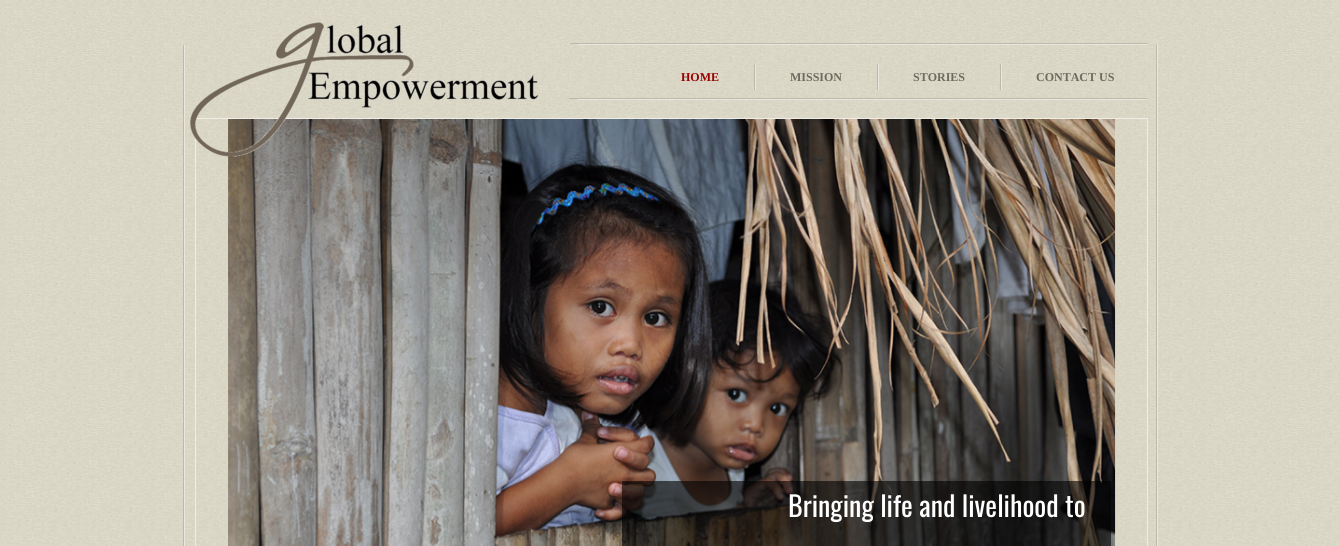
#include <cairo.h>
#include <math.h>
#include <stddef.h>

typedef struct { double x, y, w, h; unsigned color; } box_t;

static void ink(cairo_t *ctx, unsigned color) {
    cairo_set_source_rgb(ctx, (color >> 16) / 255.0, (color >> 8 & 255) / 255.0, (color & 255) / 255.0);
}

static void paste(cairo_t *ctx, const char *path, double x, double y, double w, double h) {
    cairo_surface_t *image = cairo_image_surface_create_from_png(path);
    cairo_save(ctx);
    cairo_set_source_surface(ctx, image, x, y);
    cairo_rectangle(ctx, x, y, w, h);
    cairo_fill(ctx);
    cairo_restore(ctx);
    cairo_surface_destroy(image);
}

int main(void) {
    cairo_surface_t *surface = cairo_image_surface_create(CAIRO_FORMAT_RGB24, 1340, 546);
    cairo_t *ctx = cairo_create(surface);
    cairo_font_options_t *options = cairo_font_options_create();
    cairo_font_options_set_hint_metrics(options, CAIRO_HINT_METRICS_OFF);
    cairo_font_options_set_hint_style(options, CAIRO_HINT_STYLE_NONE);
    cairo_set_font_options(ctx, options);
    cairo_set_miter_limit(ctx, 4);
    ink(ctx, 0xFFFFFF);
    cairo_paint(ctx);
    paste(ctx, "media/1.png", 0, 0, 1340, 546);
    {
        static const box_t items[] = {
            {1157, 45, 1, 501, 0xEAE8DE},
            {184, 45, 1, 501, 0xEAE8DE},
            {1156, 45, 1, 501, 0xBDBAAB},
            {183, 45, 1, 501, 0xBDBAAB},
        };
        for (size_t i = 0; i < sizeof items / sizeof *items; i++) {
            ink(ctx, items[i].color);
            cairo_rectangle(ctx, items[i].x, items[i].y, items[i].w, items[i].h);
            cairo_fill(ctx);
        }
    }
    cairo_rectangle(ctx, 195.5, 118.5, 952, 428);
    ink(ctx, 0xEFEEE6);
    cairo_set_line_width(ctx, 1);
    cairo_stroke(ctx);
    paste(ctx, "media/3.png", 228, 119, 888, 427);
    paste(ctx, "media/2.png", 190, 22, 349, 135);
    {
        static const box_t items[] = {
            {570, 43, 577, 1, 0xBDBAAB},
            {578, 44, 569, 1, 0xEAE8DE},
            {755, 64, 1, 26, 0xEAE8DE},
            {754, 64, 1, 26, 0xBDBAAB},
        };
        for (size_t i = 0; i < sizeof items / sizeof *items; i++) {
            ink(ctx, items[i].color);
            cairo_rectangle(ctx, items[i].x, items[i].y, items[i].w, items[i].h);
            cairo_fill(ctx);
        }
    }
    cairo_select_font_face(ctx, "Liberation Serif", CAIRO_FONT_SLANT_NORMAL, CAIRO_FONT_WEIGHT_BOLD);
    cairo_set_font_size(ctx, 12);
    ink(ctx, 0x980000);
    cairo_move_to(ctx, 681, 81);
    cairo_show_text(ctx, "HOME");
    ink(ctx, 0xEAE8DE);
    cairo_rectangle(ctx, 878, 64, 1, 26);
    cairo_fill(ctx);
    ink(ctx, 0xBDBAAB);
    cairo_rectangle(ctx, 877, 64, 1, 26);
    cairo_fill(ctx);
    ink(ctx, 0x6D6B5F);
    cairo_move_to(ctx, 790, 81);
    cairo_show_text(ctx, "MISSION");
    ink(ctx, 0xEAE8DE);
    cairo_rectangle(ctx, 1001, 64, 1, 26);
    cairo_fill(ctx);
    ink(ctx, 0xBDBAAB);
    cairo_rectangle(ctx, 1000, 64, 1, 26);
    cairo_fill(ctx);
    ink(ctx, 0x6D6B5F);
    cairo_move_to(ctx, 913, 81);
    cairo_show_text(ctx, "STORIES");
    cairo_move_to(ctx, 1036, 81);
    cairo_show_text(ctx, "CONTACT US");
    ink(ctx, 0xBDBAAB);
    cairo_rectangle(ctx, 569, 98, 578, 1);
    cairo_fill(ctx);
    ink(ctx, 0xEAE8DE);
    cairo_rectangle(ctx, 578, 99, 569, 1);
    cairo_fill(ctx);
    cairo_set_source_rgba(ctx, 0, 0, 0, 0.6);
    cairo_rectangle(ctx, 622, 481, 489, 65);
    cairo_fill(ctx);
    cairo_select_font_face(ctx, "Oswald", CAIRO_FONT_SLANT_NORMAL, CAIRO_FONT_WEIGHT_NORMAL);
    cairo_set_font_size(ctx, 28);
    ink(ctx, 0xFFFFFF);
    cairo_move_to(ctx, 788, 517);
    cairo_show_text(ctx, "Bringing life and livelihood to");
    cairo_surface_write_to_png(surface, "image.png");
    cairo_font_options_destroy(options);
    cairo_destroy(ctx);
    cairo_surface_destroy(surface);
    return 0;
}
